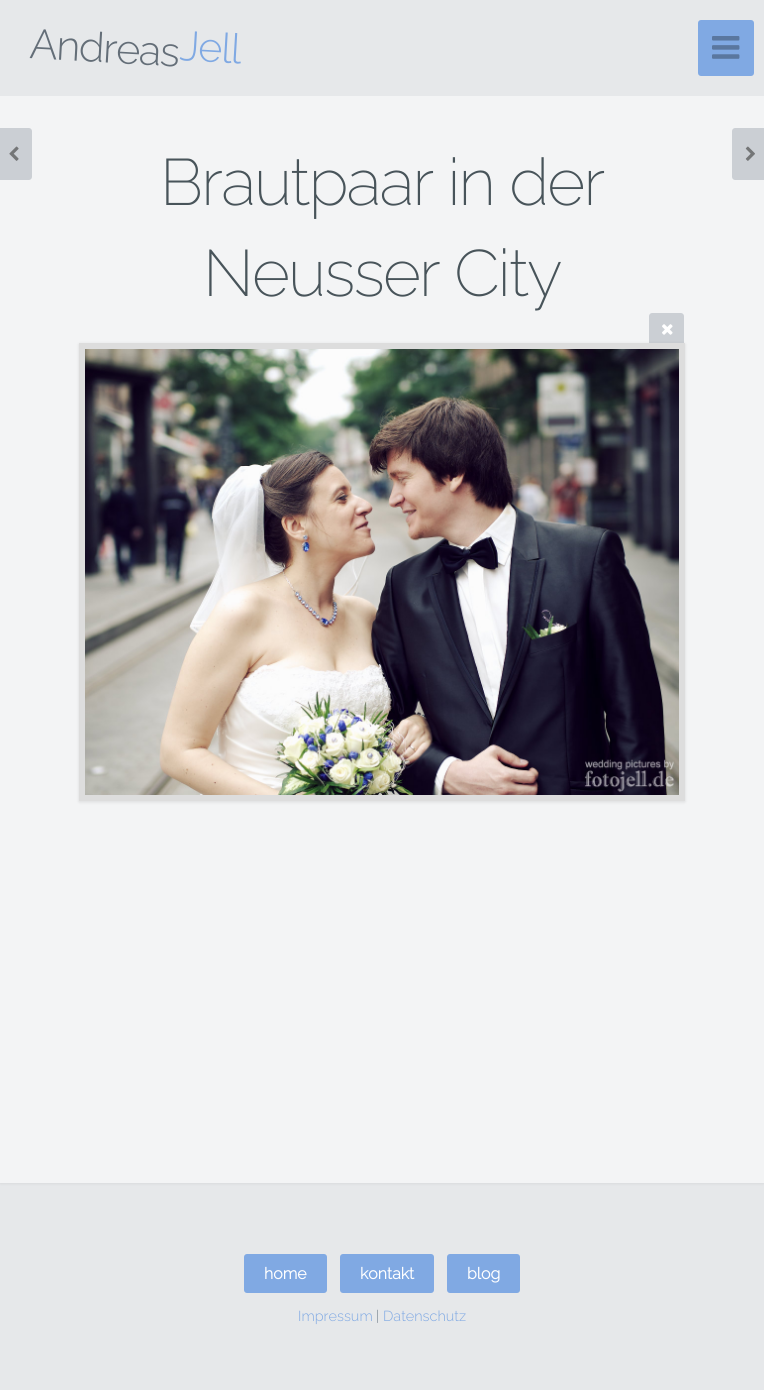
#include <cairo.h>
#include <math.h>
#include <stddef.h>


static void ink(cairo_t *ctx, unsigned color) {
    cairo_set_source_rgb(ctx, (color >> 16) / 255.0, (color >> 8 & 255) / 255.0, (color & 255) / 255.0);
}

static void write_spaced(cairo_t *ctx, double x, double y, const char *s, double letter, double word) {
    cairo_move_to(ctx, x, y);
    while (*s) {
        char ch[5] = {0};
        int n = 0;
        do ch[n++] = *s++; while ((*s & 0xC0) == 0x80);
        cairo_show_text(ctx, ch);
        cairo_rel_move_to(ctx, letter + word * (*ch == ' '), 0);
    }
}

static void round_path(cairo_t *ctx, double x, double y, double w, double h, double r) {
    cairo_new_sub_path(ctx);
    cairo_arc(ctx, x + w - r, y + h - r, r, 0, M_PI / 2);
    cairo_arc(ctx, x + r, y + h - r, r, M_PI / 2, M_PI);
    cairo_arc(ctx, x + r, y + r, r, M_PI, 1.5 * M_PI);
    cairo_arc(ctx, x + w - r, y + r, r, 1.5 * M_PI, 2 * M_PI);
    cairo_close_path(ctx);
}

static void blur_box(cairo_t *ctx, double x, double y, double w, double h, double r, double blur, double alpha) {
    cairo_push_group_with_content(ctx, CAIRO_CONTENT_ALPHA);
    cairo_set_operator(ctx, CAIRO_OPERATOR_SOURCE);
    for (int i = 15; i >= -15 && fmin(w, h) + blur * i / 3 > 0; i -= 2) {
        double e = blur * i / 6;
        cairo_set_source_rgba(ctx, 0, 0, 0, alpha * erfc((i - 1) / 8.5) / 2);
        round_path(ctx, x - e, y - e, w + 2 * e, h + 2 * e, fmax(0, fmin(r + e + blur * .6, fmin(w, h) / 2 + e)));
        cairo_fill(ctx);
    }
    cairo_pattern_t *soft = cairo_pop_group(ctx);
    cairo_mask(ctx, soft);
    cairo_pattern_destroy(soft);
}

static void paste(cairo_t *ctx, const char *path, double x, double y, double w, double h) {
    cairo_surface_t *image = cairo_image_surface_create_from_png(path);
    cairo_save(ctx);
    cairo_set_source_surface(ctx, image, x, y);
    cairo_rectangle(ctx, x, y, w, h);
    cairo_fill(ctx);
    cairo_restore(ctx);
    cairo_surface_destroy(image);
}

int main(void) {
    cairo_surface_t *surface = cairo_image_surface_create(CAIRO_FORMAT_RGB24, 764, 1390);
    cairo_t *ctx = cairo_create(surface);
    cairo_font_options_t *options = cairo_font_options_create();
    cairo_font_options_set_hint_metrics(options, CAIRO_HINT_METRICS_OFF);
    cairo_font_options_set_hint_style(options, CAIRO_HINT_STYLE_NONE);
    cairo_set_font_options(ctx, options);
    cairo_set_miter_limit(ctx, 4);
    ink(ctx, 0xE6E8EA);
    cairo_paint(ctx);
    ink(ctx, 0x000000);
    blur_box(ctx, 0, 0, 764, 1183, 0, 1.5, 0.1);
    ink(ctx, 0xF3F4F5);
    cairo_rectangle(ctx, 0, 96, 764, 1087);
    cairo_fill(ctx);
    ink(ctx, 0xE6E8EA);
    cairo_rectangle(ctx, 0, 0, 764, 96);
    cairo_fill(ctx);
    cairo_select_font_face(ctx, "Raleway Thin", CAIRO_FONT_SLANT_NORMAL, CAIRO_FONT_WEIGHT_NORMAL);
    cairo_set_font_size(ctx, 41.5);
    ink(ctx, 0x646E78);
    cairo_save(ctx);
    cairo_translate(ctx, 29, 58);
    cairo_rotate(ctx, 3.3 * M_PI / 180);
    write_spaced(ctx, 0, 0, "Andreas", -1.25, 0);
    cairo_restore(ctx);
    ink(ctx, 0x80A9E3);
    cairo_save(ctx);
    cairo_translate(ctx, 179, 60);
    cairo_rotate(ctx, 3.3 * M_PI / 180);
    write_spaced(ctx, 0, 0, "Jell", -1.25, 0);
    cairo_restore(ctx);
    ink(ctx, 0xCBCFD4);
    cairo_new_path(ctx);
    cairo_move_to(ctx, 0, 128);
    cairo_line_to(ctx, 29, 128);
    cairo_curve_to(ctx, 30.5, 128, 32, 129.5, 32, 131);
    cairo_line_to(ctx, 32, 177);
    cairo_curve_to(ctx, 32, 178.5, 30.5, 180, 29, 180);
    cairo_line_to(ctx, 0, 180);
    cairo_close_path(ctx);
    cairo_fill(ctx);
    paste(ctx, "media/1.png", 9, 146, 10, 15);
    cairo_new_path(ctx);
    cairo_move_to(ctx, 735, 128);
    cairo_line_to(ctx, 764, 128);
    cairo_line_to(ctx, 764, 180);
    cairo_line_to(ctx, 735, 180);
    cairo_curve_to(ctx, 733.5, 180, 732, 178.5, 732, 177);
    cairo_line_to(ctx, 732, 131);
    cairo_curve_to(ctx, 732, 129.5, 733.5, 128, 735, 128);
    cairo_close_path(ctx);
    cairo_fill(ctx);
    paste(ctx, "media/2.png", 745, 146, 10, 15);
    cairo_select_font_face(ctx, "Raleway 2 Thin", CAIRO_FONT_SLANT_NORMAL, CAIRO_FONT_WEIGHT_NORMAL);
    cairo_set_font_size(ctx, 65.5);
    ink(ctx, 0x48545A);
    write_spaced(ctx, 160, 205, "Brautpaar in der", -1.8, 0);
    write_spaced(ctx, 203, 296, "Neusser City", -1.8, 0);
    ink(ctx, 0xCBCFD4);
    cairo_new_path(ctx);
    cairo_move_to(ctx, 652, 313);
    cairo_line_to(ctx, 681, 313);
    cairo_curve_to(ctx, 682.5, 313, 684, 314.5, 684, 316);
    cairo_line_to(ctx, 684, 344);
    cairo_line_to(ctx, 649, 344);
    cairo_line_to(ctx, 649, 316);
    cairo_curve_to(ctx, 649, 314.5, 650.5, 313, 652, 313);
    cairo_close_path(ctx);
    cairo_fill(ctx);
    paste(ctx, "media/3.png", 662, 324, 11, 11);
    ink(ctx, 0x000000);
    blur_box(ctx, 79, 344, 606, 458, 0, 1.5, 0.1);
    cairo_rectangle(ctx, 82, 346, 600, 452);
    ink(ctx, 0xDDDDDD);
    cairo_set_line_width(ctx, 6);
    cairo_stroke(ctx);
    paste(ctx, "media/4.png", 85, 349, 594, 446);
    ink(ctx, 0x80A9E3);
    round_path(ctx, 698, 20, 56, 56, 3);
    cairo_fill(ctx);
    paste(ctx, "media/5.png", 712, 36, 28, 23);
    round_path(ctx, 244, 1254, 83, 39, 3);
    cairo_fill(ctx);
    cairo_select_font_face(ctx, "Raleway", CAIRO_FONT_SLANT_NORMAL, CAIRO_FONT_WEIGHT_BOLD);
    cairo_set_font_size(ctx, 16);
    ink(ctx, 0xFFFFFF);
    cairo_move_to(ctx, 264, 1279);
    cairo_show_text(ctx, "home");
    ink(ctx, 0x80A9E3);
    round_path(ctx, 340, 1254, 94, 39, 3);
    cairo_fill(ctx);
    ink(ctx, 0xFFFFFF);
    cairo_move_to(ctx, 360, 1279);
    cairo_show_text(ctx, "kontakt");
    ink(ctx, 0x80A9E3);
    round_path(ctx, 447, 1254, 73, 39, 3);
    cairo_fill(ctx);
    ink(ctx, 0xFFFFFF);
    cairo_move_to(ctx, 467, 1279);
    cairo_show_text(ctx, "blog");
    cairo_select_font_face(ctx, "Raleway Thin", CAIRO_FONT_SLANT_NORMAL, CAIRO_FONT_WEIGHT_NORMAL);
    cairo_set_font_size(ctx, 14.5);
    ink(ctx, 0x80A9E3);
    cairo_move_to(ctx, 298, 1321);
    cairo_show_text(ctx, "Impressum");
    ink(ctx, 0x76828D);
    cairo_move_to(ctx, 376, 1321);
    cairo_show_text(ctx, "|");
    ink(ctx, 0x80A9E3);
    cairo_move_to(ctx, 383, 1321);
    cairo_show_text(ctx, "Datenschutz");
    cairo_surface_write_to_png(surface, "image.png");
    cairo_font_options_destroy(options);
    cairo_destroy(ctx);
    cairo_surface_destroy(surface);
    return 0;
}
